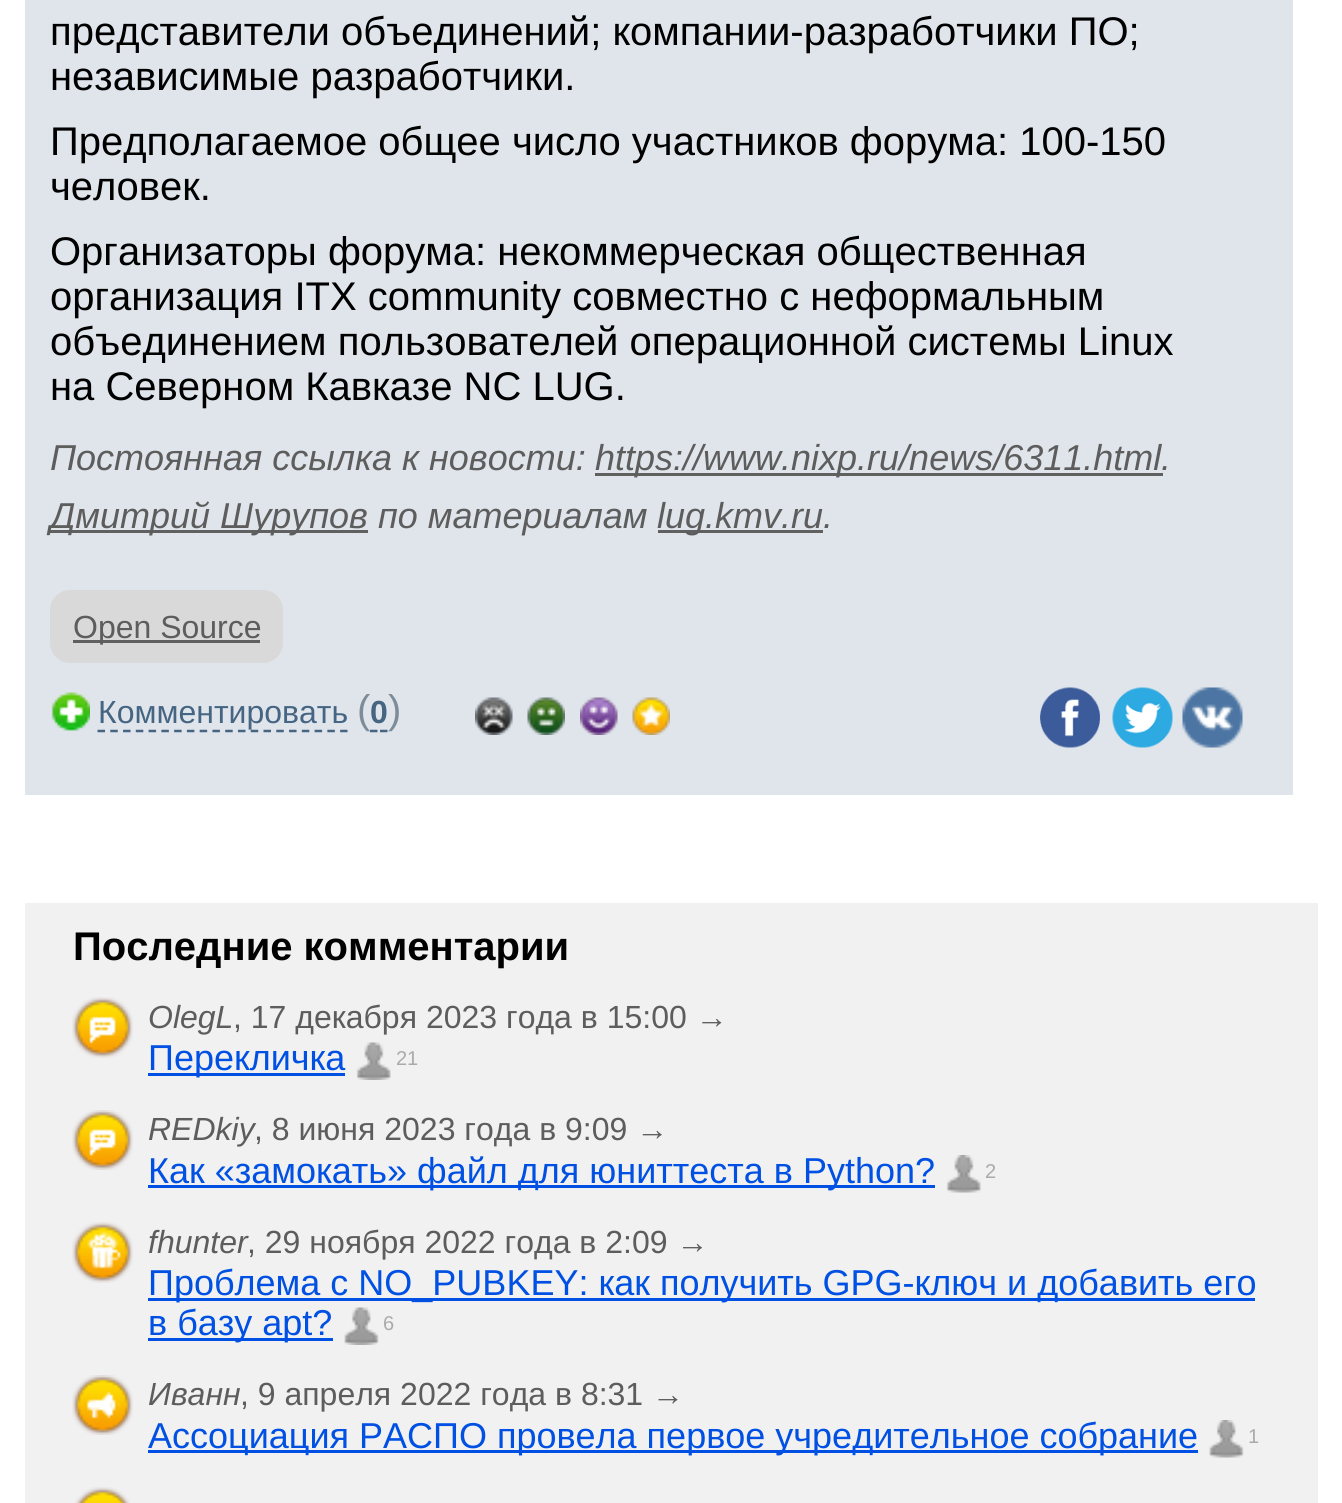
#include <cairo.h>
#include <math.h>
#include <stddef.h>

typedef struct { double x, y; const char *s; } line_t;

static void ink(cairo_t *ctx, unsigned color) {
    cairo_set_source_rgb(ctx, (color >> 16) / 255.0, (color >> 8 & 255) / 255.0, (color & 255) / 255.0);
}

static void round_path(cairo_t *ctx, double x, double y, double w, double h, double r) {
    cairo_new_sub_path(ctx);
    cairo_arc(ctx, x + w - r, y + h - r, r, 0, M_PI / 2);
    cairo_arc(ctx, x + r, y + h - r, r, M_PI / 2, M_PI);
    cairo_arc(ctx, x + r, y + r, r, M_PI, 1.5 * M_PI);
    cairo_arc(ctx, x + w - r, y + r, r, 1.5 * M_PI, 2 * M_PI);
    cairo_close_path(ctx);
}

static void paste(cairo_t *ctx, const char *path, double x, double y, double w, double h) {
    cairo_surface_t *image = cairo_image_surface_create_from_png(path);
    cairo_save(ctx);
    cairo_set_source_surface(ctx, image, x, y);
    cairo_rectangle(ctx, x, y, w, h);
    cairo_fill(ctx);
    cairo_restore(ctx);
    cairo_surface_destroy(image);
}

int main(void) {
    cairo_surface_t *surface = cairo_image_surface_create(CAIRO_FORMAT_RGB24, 1342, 1503);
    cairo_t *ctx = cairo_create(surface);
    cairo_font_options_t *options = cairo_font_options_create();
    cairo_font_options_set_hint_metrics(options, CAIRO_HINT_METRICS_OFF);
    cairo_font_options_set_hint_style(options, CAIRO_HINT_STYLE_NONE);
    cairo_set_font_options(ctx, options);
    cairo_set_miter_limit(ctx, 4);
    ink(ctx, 0xFFFFFF);
    cairo_paint(ctx);
    ink(ctx, 0xE0E5EB);
    cairo_rectangle(ctx, 25, 0, 1268, 795);
    cairo_fill(ctx);
    cairo_select_font_face(ctx, "Liberation Sans", CAIRO_FONT_SLANT_NORMAL, CAIRO_FONT_WEIGHT_NORMAL);
    cairo_set_font_size(ctx, 40);
    ink(ctx, 0x000000);
    {
        static const line_t items[] = {
            {50, 45, "представители объединений; компании-разработчики ПО;"},
            {50, 90, "независимые разработчики."},
            {50, 155, "Предполагаемое общее число участников форума: 100-150"},
            {50, 200, "человек."},
            {50, 265, "Организаторы форума: некоммерческая общественная"},
            {50, 310, "организация ITX community совместно с неформальным"},
            {50, 355, "объединением пользователей операционной системы Linux"},
            {50, 400, "на Северном Кавказе NC LUG."},
        };
        for (size_t i = 0; i < sizeof items / sizeof *items; i++) {
            cairo_move_to(ctx, items[i].x, items[i].y);
            cairo_show_text(ctx, items[i].s);
        }
    }
    cairo_select_font_face(ctx, "Liberation Sans", CAIRO_FONT_SLANT_ITALIC, CAIRO_FONT_WEIGHT_NORMAL);
    cairo_set_font_size(ctx, 36);
    ink(ctx, 0x5D5D5D);
    cairo_move_to(ctx, 50, 470);
    cairo_show_text(ctx, "Постоянная ссылка к новости:");
    ink(ctx, 0x606060);
    cairo_rectangle(ctx, 595, 473, 568, 3);
    cairo_fill(ctx);
    ink(ctx, 0x5D5D5D);
    cairo_move_to(ctx, 595, 470);
    cairo_show_text(ctx, "https://www.nixp.ru/news/6311.html");
    cairo_move_to(ctx, 1161, 470);
    cairo_show_text(ctx, ".");
    ink(ctx, 0x606060);
    cairo_rectangle(ctx, 50, 530, 318, 3);
    cairo_fill(ctx);
    ink(ctx, 0x5D5D5D);
    cairo_move_to(ctx, 50, 528);
    cairo_show_text(ctx, "Дмитрий Шурупов по материалам");
    ink(ctx, 0x606060);
    cairo_rectangle(ctx, 658, 530, 165, 3);
    cairo_fill(ctx);
    ink(ctx, 0x5D5D5D);
    cairo_move_to(ctx, 657, 528);
    cairo_show_text(ctx, "lug.kmv.ru.");
    ink(ctx, 0xD9D9D9);
    round_path(ctx, 50, 590, 233, 73, 20);
    cairo_fill(ctx);
    ink(ctx, 0x606060);
    cairo_rectangle(ctx, 73, 640, 187, 3);
    cairo_fill(ctx);
    cairo_select_font_face(ctx, "Liberation Sans", CAIRO_FONT_SLANT_NORMAL, CAIRO_FONT_WEIGHT_NORMAL);
    cairo_set_font_size(ctx, 32);
    ink(ctx, 0x5D5D5D);
    cairo_move_to(ctx, 73, 638);
    cairo_show_text(ctx, "Open Source");
    paste(ctx, "media/1.png", 51, 692, 39, 39);
    cairo_new_path(ctx);
    cairo_move_to(ctx, 97.5, 731);
    cairo_line_to(ctx, 347.5, 731);
    ink(ctx, 0x466582);
    cairo_set_line_width(ctx, 2.5);
    cairo_set_dash(ctx, (double[]){7.5, 5.27}, 2, 0);
    cairo_stroke(ctx);
    cairo_move_to(ctx, 98, 723);
    cairo_show_text(ctx, "Комментировать");
    cairo_set_font_size(ctx, 40);
    ink(ctx, 0x7E8C99);
    cairo_move_to(ctx, 357, 723);
    cairo_show_text(ctx, "(");
    cairo_select_font_face(ctx, "Liberation Sans", CAIRO_FONT_SLANT_NORMAL, CAIRO_FONT_WEIGHT_BOLD);
    cairo_set_font_size(ctx, 32);
    ink(ctx, 0x466582);
    cairo_move_to(ctx, 370, 723);
    cairo_show_text(ctx, "0");
    cairo_new_path(ctx);
    cairo_move_to(ctx, 370, 731);
    cairo_line_to(ctx, 377.5, 731);
    cairo_move_to(ctx, 380, 731);
    cairo_line_to(ctx, 387.5, 731);
    cairo_set_dash(ctx, NULL, 0, 0);
    cairo_stroke(ctx);
    cairo_select_font_face(ctx, "Liberation Sans", CAIRO_FONT_SLANT_NORMAL, CAIRO_FONT_WEIGHT_NORMAL);
    cairo_set_font_size(ctx, 40);
    ink(ctx, 0x7E8C99);
    cairo_move_to(ctx, 388, 723);
    cairo_show_text(ctx, ")");
    paste(ctx, "media/2.png", 475, 697, 38, 38);
    paste(ctx, "media/3.png", 527, 697, 38, 38);
    paste(ctx, "media/4.png", 580, 697, 38, 38);
    paste(ctx, "media/5.png", 632, 697, 38, 38);
    paste(ctx, "media/6.png", 1040, 687, 60, 61);
    paste(ctx, "media/7.png", 1112, 687, 61, 61);
    paste(ctx, "media/8.png", 1182, 687, 61, 61);
    ink(ctx, 0xF1F1F1);
    cairo_rectangle(ctx, 25, 903, 1293, 600);
    cairo_fill(ctx);
    cairo_select_font_face(ctx, "Liberation Sans", CAIRO_FONT_SLANT_NORMAL, CAIRO_FONT_WEIGHT_BOLD);
    ink(ctx, 0x000000);
    cairo_move_to(ctx, 73, 960);
    cairo_show_text(ctx, "Последние комментарии");
    paste(ctx, "media/9.png", 72, 997, 61, 61);
    cairo_select_font_face(ctx, "Liberation Sans", CAIRO_FONT_SLANT_ITALIC, CAIRO_FONT_WEIGHT_NORMAL);
    cairo_set_font_size(ctx, 32);
    ink(ctx, 0x5D5D5D);
    cairo_move_to(ctx, 148, 1028);
    cairo_show_text(ctx, "OlegL");
    cairo_select_font_face(ctx, "Liberation Sans", CAIRO_FONT_SLANT_NORMAL, CAIRO_FONT_WEIGHT_NORMAL);
    cairo_move_to(ctx, 233, 1028);
    cairo_show_text(ctx, ", 17 декабря 2023 года в 15:00 →");
    ink(ctx, 0x0050E3);
    cairo_rectangle(ctx, 148, 1073, 197, 3);
    cairo_fill(ctx);
    cairo_set_font_size(ctx, 36);
    cairo_move_to(ctx, 148, 1070);
    cairo_show_text(ctx, "Перекличка");
    paste(ctx, "media/10.png", 356, 1042, 35, 38);
    cairo_set_font_size(ctx, 20);
    ink(ctx, 0xAAAAAA);
    cairo_move_to(ctx, 396, 1065);
    cairo_show_text(ctx, "21");
    paste(ctx, "media/11.png", 72, 1110, 61, 60);
    cairo_select_font_face(ctx, "Liberation Sans", CAIRO_FONT_SLANT_ITALIC, CAIRO_FONT_WEIGHT_NORMAL);
    cairo_set_font_size(ctx, 32);
    ink(ctx, 0x5D5D5D);
    cairo_move_to(ctx, 148, 1140);
    cairo_show_text(ctx, "REDkiy");
    cairo_select_font_face(ctx, "Liberation Sans", CAIRO_FONT_SLANT_NORMAL, CAIRO_FONT_WEIGHT_NORMAL);
    cairo_move_to(ctx, 254, 1140);
    cairo_show_text(ctx, ", 8 июня 2023 года в 9:09 →");
    ink(ctx, 0x0050E3);
    cairo_rectangle(ctx, 148, 1185, 787, 3);
    cairo_fill(ctx);
    cairo_set_font_size(ctx, 36);
    cairo_move_to(ctx, 148, 1183);
    cairo_show_text(ctx, "Как «замокать» файл для юниттеста в Python?");
    paste(ctx, "media/12.png", 946, 1155, 35, 38);
    cairo_set_font_size(ctx, 20);
    ink(ctx, 0xAAAAAA);
    cairo_move_to(ctx, 985, 1178);
    cairo_show_text(ctx, "2");
    paste(ctx, "media/13.png", 72, 1222, 61, 61);
    cairo_select_font_face(ctx, "Liberation Sans", CAIRO_FONT_SLANT_ITALIC, CAIRO_FONT_WEIGHT_NORMAL);
    cairo_set_font_size(ctx, 32);
    ink(ctx, 0x5D5D5D);
    cairo_move_to(ctx, 148, 1253);
    cairo_show_text(ctx, "fhunter");
    cairo_select_font_face(ctx, "Liberation Sans", CAIRO_FONT_SLANT_NORMAL, CAIRO_FONT_WEIGHT_NORMAL);
    cairo_move_to(ctx, 247, 1253);
    cairo_show_text(ctx, ", 29 ноября 2022 года в 2:09 →");
    ink(ctx, 0x0050E3);
    cairo_rectangle(ctx, 148, 1298, 1107, 3);
    cairo_fill(ctx);
    cairo_set_font_size(ctx, 36);
    cairo_move_to(ctx, 148, 1295);
    cairo_show_text(ctx, "Проблема с NO_PUBKEY: как получить GPG-ключ и добавить его");
    cairo_rectangle(ctx, 148, 1338, 185, 3);
    cairo_fill(ctx);
    cairo_move_to(ctx, 148, 1335);
    cairo_show_text(ctx, "в базу apt?");
    paste(ctx, "media/14.png", 344, 1307, 35, 38);
    cairo_set_font_size(ctx, 20);
    ink(ctx, 0xAAAAAA);
    cairo_move_to(ctx, 383, 1330);
    cairo_show_text(ctx, "6");
    paste(ctx, "media/15.png", 72, 1375, 61, 60);
    cairo_select_font_face(ctx, "Liberation Sans", CAIRO_FONT_SLANT_ITALIC, CAIRO_FONT_WEIGHT_NORMAL);
    cairo_set_font_size(ctx, 32);
    ink(ctx, 0x5D5D5D);
    cairo_move_to(ctx, 148, 1405);
    cairo_show_text(ctx, "Иванн");
    cairo_select_font_face(ctx, "Liberation Sans", CAIRO_FONT_SLANT_NORMAL, CAIRO_FONT_WEIGHT_NORMAL);
    cairo_move_to(ctx, 240, 1405);
    cairo_show_text(ctx, ", 9 апреля 2022 года в 8:31 →");
    ink(ctx, 0x0050E3);
    cairo_rectangle(ctx, 148, 1450, 1050, 3);
    cairo_fill(ctx);
    cairo_set_font_size(ctx, 36);
    cairo_move_to(ctx, 148, 1448);
    cairo_show_text(ctx, "Ассоциация РАСПО провела первое учредительное собрание");
    paste(ctx, "media/16.png", 1209, 1420, 35, 38);
    cairo_set_font_size(ctx, 20);
    ink(ctx, 0xAAAAAA);
    cairo_move_to(ctx, 1248, 1443);
    cairo_show_text(ctx, "1");
    paste(ctx, "media/17.png", 75, 1487, 55, 16);
    cairo_surface_write_to_png(surface, "image.png");
    cairo_font_options_destroy(options);
    cairo_destroy(ctx);
    cairo_surface_destroy(surface);
    return 0;
}
